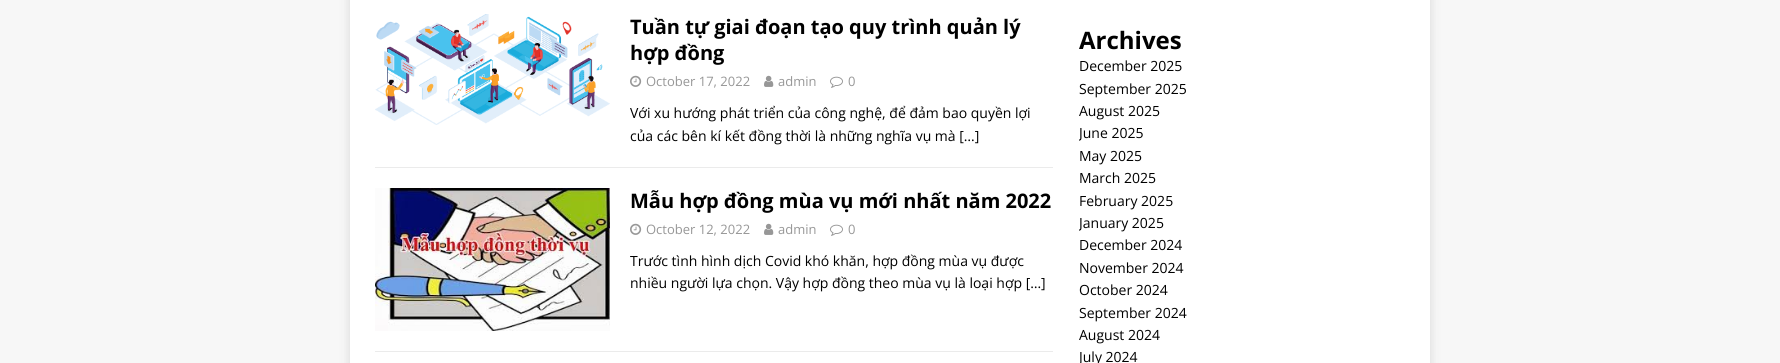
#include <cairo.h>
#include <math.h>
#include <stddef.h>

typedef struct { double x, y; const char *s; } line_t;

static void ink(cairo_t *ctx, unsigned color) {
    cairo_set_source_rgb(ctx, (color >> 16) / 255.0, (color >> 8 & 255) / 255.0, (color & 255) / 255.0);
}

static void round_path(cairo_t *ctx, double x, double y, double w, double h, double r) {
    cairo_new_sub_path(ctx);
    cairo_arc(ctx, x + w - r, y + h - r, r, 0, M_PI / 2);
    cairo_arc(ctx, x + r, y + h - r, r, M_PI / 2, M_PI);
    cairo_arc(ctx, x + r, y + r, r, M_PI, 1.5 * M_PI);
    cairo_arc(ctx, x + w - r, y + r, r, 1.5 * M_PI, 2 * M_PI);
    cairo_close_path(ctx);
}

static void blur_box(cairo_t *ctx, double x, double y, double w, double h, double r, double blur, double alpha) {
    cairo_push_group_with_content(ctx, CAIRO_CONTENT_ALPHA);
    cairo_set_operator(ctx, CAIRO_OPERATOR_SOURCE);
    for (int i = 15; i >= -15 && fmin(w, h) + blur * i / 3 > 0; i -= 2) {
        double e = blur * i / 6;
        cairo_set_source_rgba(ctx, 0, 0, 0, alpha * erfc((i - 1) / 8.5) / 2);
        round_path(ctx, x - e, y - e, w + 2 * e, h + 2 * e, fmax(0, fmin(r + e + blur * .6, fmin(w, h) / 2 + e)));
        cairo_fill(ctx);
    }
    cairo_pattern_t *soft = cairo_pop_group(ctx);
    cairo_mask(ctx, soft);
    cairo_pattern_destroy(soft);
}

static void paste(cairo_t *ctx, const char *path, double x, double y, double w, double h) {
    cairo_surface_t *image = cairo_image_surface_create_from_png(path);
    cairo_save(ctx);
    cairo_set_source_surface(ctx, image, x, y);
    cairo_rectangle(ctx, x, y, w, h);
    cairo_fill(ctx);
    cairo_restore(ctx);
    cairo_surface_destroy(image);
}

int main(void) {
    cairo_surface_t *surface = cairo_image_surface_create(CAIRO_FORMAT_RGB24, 1780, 363);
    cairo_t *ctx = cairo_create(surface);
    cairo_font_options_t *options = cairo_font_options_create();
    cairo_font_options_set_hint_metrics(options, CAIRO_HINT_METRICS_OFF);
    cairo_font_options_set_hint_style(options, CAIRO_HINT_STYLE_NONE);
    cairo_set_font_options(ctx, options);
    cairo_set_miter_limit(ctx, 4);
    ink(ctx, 0xF7F7F7);
    cairo_paint(ctx);
    ink(ctx, 0x323232);
    blur_box(ctx, 350, -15, 1080, 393, 0, 5, 0.17);
    ink(ctx, 0xFFFFFF);
    cairo_rectangle(ctx, 350, 0, 1080, 363);
    cairo_fill(ctx);
    ink(ctx, 0xEBEBEB);
    cairo_rectangle(ctx, 375, 167, 678, 1);
    cairo_fill(ctx);
    paste(ctx, "media/1.png", 375, 14, 235, 111);
    cairo_select_font_face(ctx, "Open Sans", CAIRO_FONT_SLANT_NORMAL, CAIRO_FONT_WEIGHT_BOLD);
    cairo_set_font_size(ctx, 20);
    ink(ctx, 0x000000);
    cairo_move_to(ctx, 630, 34);
    cairo_show_text(ctx, "Tuần tự giai đoạn tạo quy trình quản lý");
    cairo_move_to(ctx, 630, 60);
    cairo_show_text(ctx, "hợp đồng");
    paste(ctx, "media/2.png", 630, 75, 12, 12);
    cairo_select_font_face(ctx, "Open Sans", CAIRO_FONT_SLANT_NORMAL, CAIRO_FONT_WEIGHT_NORMAL);
    cairo_set_font_size(ctx, 13);
    ink(ctx, 0x979797);
    cairo_move_to(ctx, 646, 86);
    cairo_show_text(ctx, "October 17, 2022");
    paste(ctx, "media/3.png", 764, 75, 10, 12);
    cairo_move_to(ctx, 778, 86);
    cairo_show_text(ctx, "admin");
    paste(ctx, "media/4.png", 830, 76, 13, 12);
    cairo_move_to(ctx, 848, 86);
    cairo_show_text(ctx, "0");
    cairo_set_font_size(ctx, 14);
    ink(ctx, 0x000000);
    cairo_move_to(ctx, 630, 118);
    cairo_show_text(ctx, "Với xu hướng phát triển của công nghệ, để đảm bao quyền lợi");
    cairo_move_to(ctx, 630, 141);
    cairo_show_text(ctx, "của các bên kí kết đồng thời là những nghĩa vụ mà […]");
    ink(ctx, 0xEBEBEB);
    cairo_rectangle(ctx, 375, 351, 678, 1);
    cairo_fill(ctx);
    paste(ctx, "media/5.png", 375, 188, 235, 143);
    cairo_select_font_face(ctx, "Open Sans", CAIRO_FONT_SLANT_NORMAL, CAIRO_FONT_WEIGHT_BOLD);
    cairo_set_font_size(ctx, 20);
    ink(ctx, 0x000000);
    cairo_move_to(ctx, 630, 208);
    cairo_show_text(ctx, "Mẫu hợp đồng mùa vụ mới nhất năm 2022");
    paste(ctx, "media/2.png", 630, 223, 12, 12);
    cairo_select_font_face(ctx, "Open Sans", CAIRO_FONT_SLANT_NORMAL, CAIRO_FONT_WEIGHT_NORMAL);
    cairo_set_font_size(ctx, 13);
    ink(ctx, 0x979797);
    cairo_move_to(ctx, 646, 234);
    cairo_show_text(ctx, "October 12, 2022");
    paste(ctx, "media/3.png", 764, 223, 10, 12);
    cairo_move_to(ctx, 778, 234);
    cairo_show_text(ctx, "admin");
    paste(ctx, "media/4.png", 830, 224, 13, 12);
    cairo_move_to(ctx, 848, 234);
    cairo_show_text(ctx, "0");
    cairo_set_font_size(ctx, 14);
    ink(ctx, 0x000000);
    cairo_move_to(ctx, 630, 266);
    cairo_show_text(ctx, "Trước tình hình dịch Covid khó khăn, hợp đồng mùa vụ được");
    cairo_move_to(ctx, 630, 288);
    cairo_show_text(ctx, "nhiều người lựa chọn. Vậy hợp đồng theo mùa vụ là loại hợp […]");
    cairo_select_font_face(ctx, "Open Sans", CAIRO_FONT_SLANT_NORMAL, CAIRO_FONT_WEIGHT_BOLD);
    cairo_set_font_size(ctx, 24);
    cairo_move_to(ctx, 1079, 49);
    cairo_show_text(ctx, "Archives");
    cairo_select_font_face(ctx, "Open Sans", CAIRO_FONT_SLANT_NORMAL, CAIRO_FONT_WEIGHT_NORMAL);
    cairo_set_font_size(ctx, 14);
    {
        static const line_t items[] = {
            {1079, 71, "December 2025"},
            {1079, 94, "September 2025"},
            {1079, 116, "August 2025"},
        };
        for (size_t i = 0; i < sizeof items / sizeof *items; i++) {
            cairo_move_to(ctx, items[i].x, items[i].y);
            cairo_show_text(ctx, items[i].s);
        }
    }
    cairo_save(ctx);
    cairo_rectangle(ctx, 1079, 24, 326, 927);
    cairo_clip(ctx);
    cairo_move_to(ctx, 1079, 138);
    cairo_show_text(ctx, "June 2025");
    cairo_restore(ctx);
    {
        static const line_t items[] = {
            {1079, 161, "May 2025"},
            {1079, 183, "March 2025"},
            {1079, 206, "February 2025"},
        };
        for (size_t i = 0; i < sizeof items / sizeof *items; i++) {
            cairo_move_to(ctx, items[i].x, items[i].y);
            cairo_show_text(ctx, items[i].s);
        }
    }
    cairo_save(ctx);
    cairo_rectangle(ctx, 1079, 24, 326, 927);
    cairo_clip(ctx);
    cairo_move_to(ctx, 1079, 228);
    cairo_show_text(ctx, "January 2025");
    cairo_restore(ctx);
    {
        static const line_t items[] = {
            {1079, 250, "December 2024"},
            {1079, 273, "November 2024"},
            {1079, 295, "October 2024"},
            {1079, 318, "September 2024"},
            {1079, 340, "August 2024"},
            {1079, 362, "July 2024"},
        };
        for (size_t i = 0; i < sizeof items / sizeof *items; i++) {
            cairo_move_to(ctx, items[i].x, items[i].y);
            cairo_show_text(ctx, items[i].s);
        }
    }
    cairo_surface_write_to_png(surface, "image.png");
    cairo_font_options_destroy(options);
    cairo_destroy(ctx);
    cairo_surface_destroy(surface);
    return 0;
}
